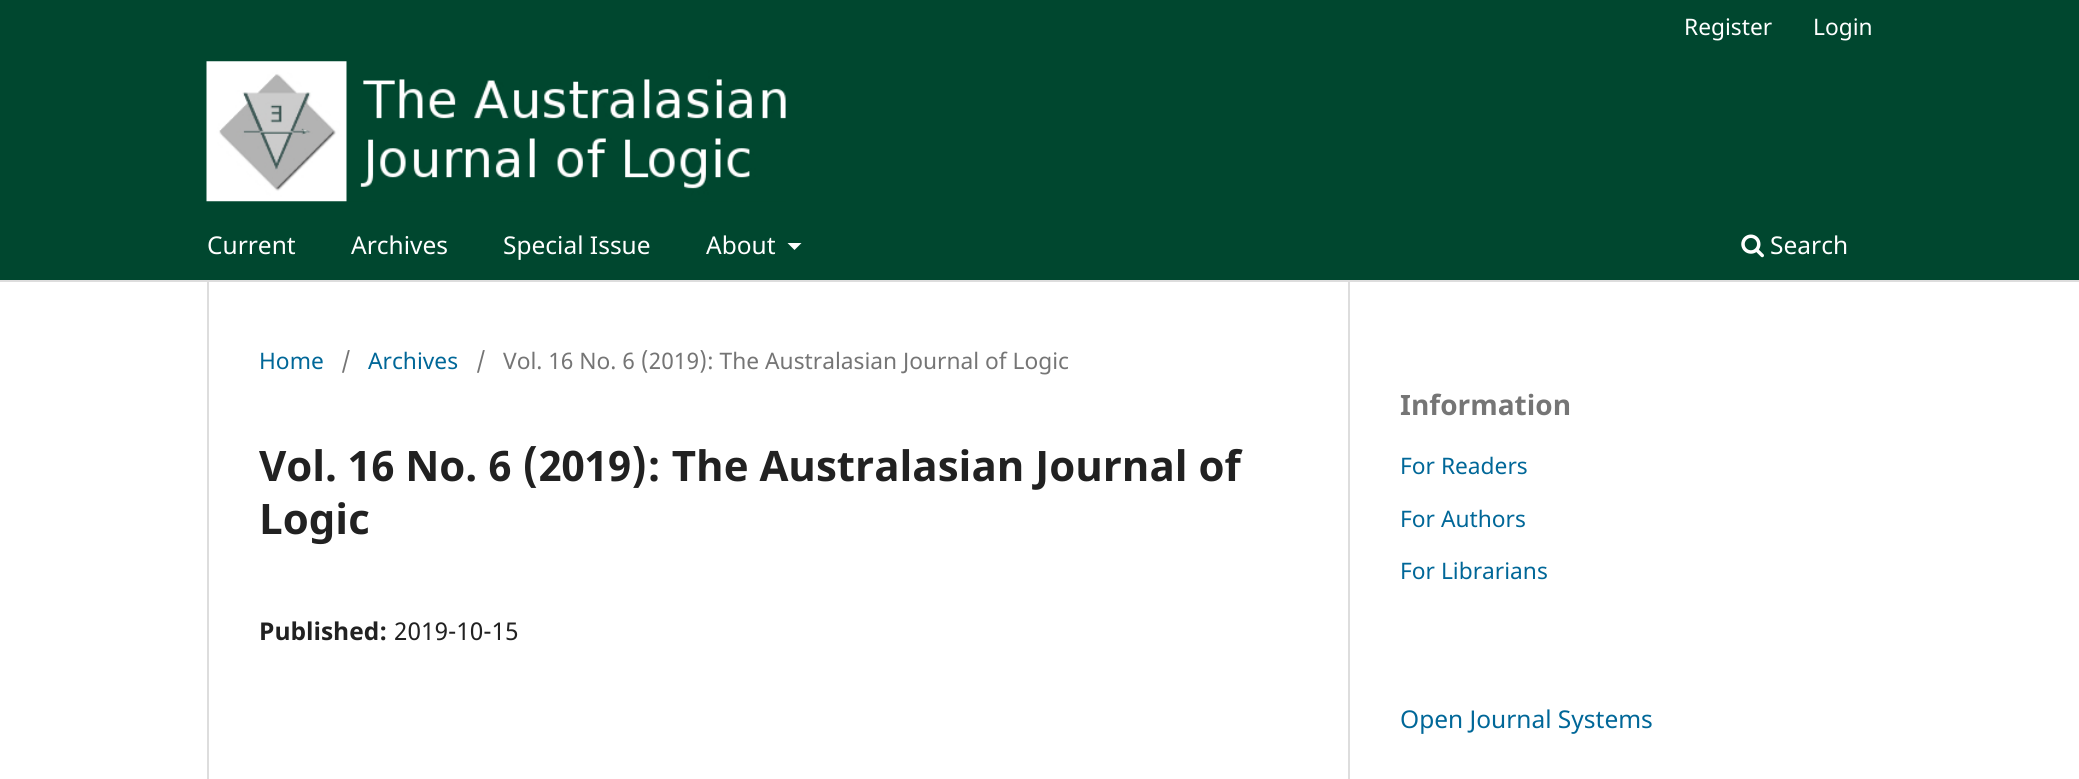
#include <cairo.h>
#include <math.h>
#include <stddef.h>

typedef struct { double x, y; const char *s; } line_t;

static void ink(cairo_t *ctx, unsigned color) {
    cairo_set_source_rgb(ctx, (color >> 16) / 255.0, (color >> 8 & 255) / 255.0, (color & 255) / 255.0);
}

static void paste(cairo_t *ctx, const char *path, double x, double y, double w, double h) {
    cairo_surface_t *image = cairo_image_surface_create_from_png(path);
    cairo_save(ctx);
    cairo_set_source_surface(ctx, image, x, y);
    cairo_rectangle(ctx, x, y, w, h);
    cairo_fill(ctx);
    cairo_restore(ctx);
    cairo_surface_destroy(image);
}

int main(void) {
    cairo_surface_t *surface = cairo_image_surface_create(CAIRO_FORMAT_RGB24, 2079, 779);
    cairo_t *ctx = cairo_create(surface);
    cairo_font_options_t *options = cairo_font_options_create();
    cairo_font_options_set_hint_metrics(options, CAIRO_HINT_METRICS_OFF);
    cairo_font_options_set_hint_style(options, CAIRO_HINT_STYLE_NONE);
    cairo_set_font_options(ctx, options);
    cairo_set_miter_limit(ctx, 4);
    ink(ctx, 0xFFFFFF);
    cairo_paint(ctx);
    ink(ctx, 0x00472F);
    cairo_rectangle(ctx, 0, 0, 2079, 280);
    cairo_fill(ctx);
    ink(ctx, 0xDDDDDD);
    cairo_rectangle(ctx, 0, 280, 2079, 2);
    cairo_fill(ctx);
    cairo_select_font_face(ctx, "Noto Sans", CAIRO_FONT_SLANT_NORMAL, CAIRO_FONT_WEIGHT_NORMAL);
    cairo_set_font_size(ctx, 22.75);
    ink(ctx, 0xFFFFFF);
    cairo_move_to(ctx, 1684, 35);
    cairo_show_text(ctx, "Register");
    cairo_move_to(ctx, 1813, 35);
    cairo_show_text(ctx, "Login");
    cairo_set_font_size(ctx, 24.5);
    {
        static const line_t items[] = {
            {207, 254, "Current"},
            {351, 254, "Archives"},
            {503, 254, "Special Issue"},
            {706, 254, "About"},
        };
        for (size_t i = 0; i < sizeof items / sizeof *items; i++) {
            cairo_move_to(ctx, items[i].x, items[i].y);
            cairo_show_text(ctx, items[i].s);
        }
    }
    cairo_new_path(ctx);
    cairo_move_to(ctx, 787.5, 243);
    cairo_line_to(ctx, 801.5, 243);
    cairo_line_to(ctx, 794.5, 250);
    cairo_close_path(ctx);
    cairo_fill(ctx);
    paste(ctx, "media/1.png", 1741, 234, 23, 24);
    cairo_move_to(ctx, 1770, 254);
    cairo_show_text(ctx, "Search");
    paste(ctx, "media/2.png", 206, 61, 580, 141);
    ink(ctx, 0xDDDDDD);
    cairo_rectangle(ctx, 207, 282, 2, 497);
    cairo_fill(ctx);
    cairo_set_font_size(ctx, 22.75);
    ink(ctx, 0x006798);
    cairo_move_to(ctx, 259, 369);
    cairo_show_text(ctx, "Home");
    ink(ctx, 0x757575);
    cairo_move_to(ctx, 341, 369);
    cairo_show_text(ctx, "/");
    ink(ctx, 0x006798);
    cairo_move_to(ctx, 368, 369);
    cairo_show_text(ctx, "Archives");
    ink(ctx, 0x757575);
    cairo_move_to(ctx, 476, 369);
    cairo_show_text(ctx, "/");
    cairo_move_to(ctx, 503, 369);
    cairo_show_text(ctx, "Vol. 16 No. 6 (2019): The Australasian Journal of Logic");
    cairo_select_font_face(ctx, "Noto Sans", CAIRO_FONT_SLANT_NORMAL, CAIRO_FONT_WEIGHT_BOLD);
    cairo_set_font_size(ctx, 42);
    ink(ctx, 0x212121);
    cairo_move_to(ctx, 259, 481);
    cairo_show_text(ctx, "Vol. 16 No. 6 (2019): The Australasian Journal of");
    cairo_move_to(ctx, 259, 534);
    cairo_show_text(ctx, "Logic");
    cairo_set_font_size(ctx, 24.5);
    cairo_move_to(ctx, 259, 640);
    cairo_show_text(ctx, "Published:");
    cairo_select_font_face(ctx, "Noto Sans", CAIRO_FONT_SLANT_NORMAL, CAIRO_FONT_WEIGHT_NORMAL);
    cairo_move_to(ctx, 394, 640);
    cairo_show_text(ctx, "2019-10-15");
    ink(ctx, 0xDDDDDD);
    cairo_rectangle(ctx, 1348, 282, 2, 497);
    cairo_fill(ctx);
    cairo_select_font_face(ctx, "Noto Sans", CAIRO_FONT_SLANT_NORMAL, CAIRO_FONT_WEIGHT_BOLD);
    cairo_set_font_size(ctx, 28);
    ink(ctx, 0x757575);
    cairo_move_to(ctx, 1400, 415);
    cairo_show_text(ctx, "Information");
    cairo_select_font_face(ctx, "Noto Sans", CAIRO_FONT_SLANT_NORMAL, CAIRO_FONT_WEIGHT_NORMAL);
    cairo_set_font_size(ctx, 22.75);
    ink(ctx, 0x006798);
    {
        static const line_t items[] = {
            {1400, 474, "For Readers"},
            {1400, 527, "For Authors"},
            {1400, 579, "For Librarians"},
        };
        for (size_t i = 0; i < sizeof items / sizeof *items; i++) {
            cairo_move_to(ctx, items[i].x, items[i].y);
            cairo_show_text(ctx, items[i].s);
        }
    }
    cairo_set_font_size(ctx, 24.5);
    cairo_move_to(ctx, 1400, 728);
    cairo_show_text(ctx, "Open Journal Systems");
    cairo_surface_write_to_png(surface, "image.png");
    cairo_font_options_destroy(options);
    cairo_destroy(ctx);
    cairo_surface_destroy(surface);
    return 0;
}
